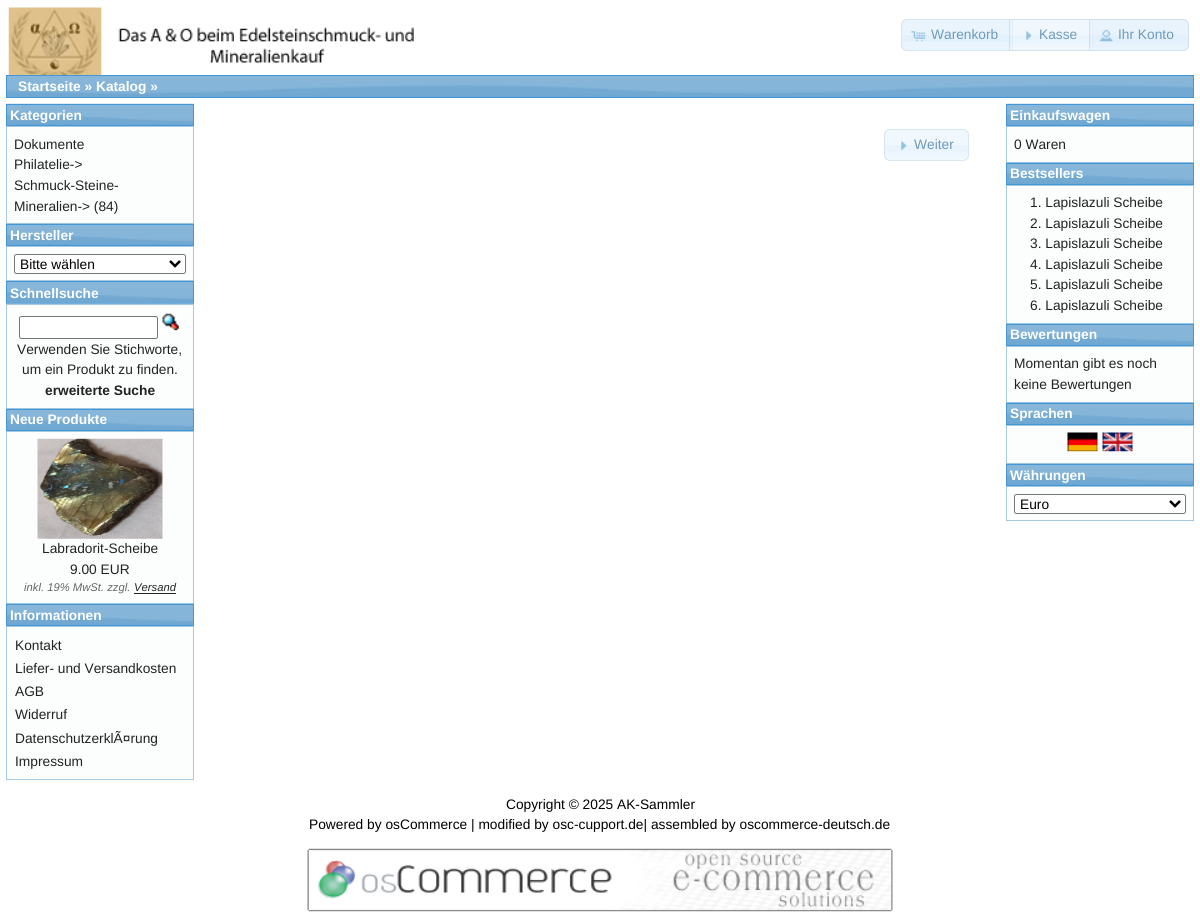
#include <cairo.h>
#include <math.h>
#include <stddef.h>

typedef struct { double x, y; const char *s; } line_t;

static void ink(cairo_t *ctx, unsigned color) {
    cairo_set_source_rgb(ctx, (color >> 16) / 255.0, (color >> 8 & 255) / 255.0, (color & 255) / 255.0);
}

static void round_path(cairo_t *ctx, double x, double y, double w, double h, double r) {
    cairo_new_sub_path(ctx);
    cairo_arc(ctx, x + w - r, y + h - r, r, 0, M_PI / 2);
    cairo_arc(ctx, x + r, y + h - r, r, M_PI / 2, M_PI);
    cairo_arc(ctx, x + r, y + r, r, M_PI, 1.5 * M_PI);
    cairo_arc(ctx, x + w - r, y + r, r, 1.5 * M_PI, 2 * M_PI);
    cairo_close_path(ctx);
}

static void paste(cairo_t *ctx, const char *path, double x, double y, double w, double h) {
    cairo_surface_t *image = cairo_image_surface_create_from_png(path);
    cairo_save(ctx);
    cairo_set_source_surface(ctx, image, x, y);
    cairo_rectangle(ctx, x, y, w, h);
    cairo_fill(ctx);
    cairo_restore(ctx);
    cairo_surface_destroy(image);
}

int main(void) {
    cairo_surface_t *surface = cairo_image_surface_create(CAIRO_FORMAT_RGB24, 1200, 924);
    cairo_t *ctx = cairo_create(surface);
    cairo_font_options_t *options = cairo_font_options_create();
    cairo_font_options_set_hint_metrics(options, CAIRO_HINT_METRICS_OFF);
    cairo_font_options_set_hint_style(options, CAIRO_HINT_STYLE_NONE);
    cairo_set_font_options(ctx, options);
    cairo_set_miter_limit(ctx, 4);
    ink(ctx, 0xFFFFFF);
    cairo_paint(ctx);
    paste(ctx, "media/1.png", 8, 7, 406, 68);
    ink(ctx, 0xE9F4FD);
    cairo_new_path(ctx);
    cairo_move_to(ctx, 907, 19);
    cairo_line_to(ctx, 1013, 19);
    cairo_line_to(ctx, 1013, 51);
    cairo_line_to(ctx, 907, 51);
    cairo_curve_to(ctx, 903.5, 51, 901, 48.5, 901, 45);
    cairo_line_to(ctx, 901, 25);
    cairo_curve_to(ctx, 901, 21.5, 903.5, 19, 907, 19);
    cairo_close_path(ctx);
    cairo_fill(ctx);
    ink(ctx, 0xE2F1FC);
    cairo_rectangle(ctx, 901, 35, 111, 7);
    cairo_fill(ctx);
    cairo_new_path(ctx);
    cairo_move_to(ctx, 907, 19.5);
    cairo_line_to(ctx, 1012.5, 19.5);
    cairo_line_to(ctx, 1012.5, 50.5);
    cairo_line_to(ctx, 907, 50.5);
    cairo_curve_to(ctx, 904, 50.5, 901.5, 48, 901.5, 45);
    cairo_line_to(ctx, 901.5, 25);
    cairo_curve_to(ctx, 901.5, 22, 904, 19.5, 907, 19.5);
    cairo_close_path(ctx);
    ink(ctx, 0xD6E6F2);
    cairo_set_line_width(ctx, 1);
    cairo_stroke(ctx);
    paste(ctx, "media/2.png", 911, 31, 15, 11);
    cairo_select_font_face(ctx, "Liberation Sans", CAIRO_FONT_SLANT_NORMAL, CAIRO_FONT_WEIGHT_NORMAL);
    cairo_set_font_size(ctx, 13.75);
    ink(ctx, 0x6D9ABB);
    cairo_move_to(ctx, 931, 39);
    cairo_show_text(ctx, "Warenkorb");
    paste(ctx, "media/3.png", 1008, 18, 85, 33);
    cairo_rectangle(ctx, 1009.5, 19.5, 83, 31);
    cairo_set_source_rgba(ctx, 0.773, 0.859, 0.925, 0.7);
    cairo_stroke(ctx);
    paste(ctx, "media/4.png", 1026, 31, 6, 10);
    ink(ctx, 0x6D9ABB);
    cairo_move_to(ctx, 1039, 39);
    cairo_show_text(ctx, "Kasse");
    cairo_set_source_rgba(ctx, 0.875, 0.937, 0.988, 0.7);
    cairo_new_path(ctx);
    cairo_move_to(ctx, 1089, 19);
    cairo_line_to(ctx, 1183, 19);
    cairo_curve_to(ctx, 1186.5, 19, 1189, 21.5, 1189, 25);
    cairo_line_to(ctx, 1189, 45);
    cairo_curve_to(ctx, 1189, 48.5, 1186.5, 51, 1183, 51);
    cairo_line_to(ctx, 1089, 51);
    cairo_close_path(ctx);
    cairo_fill(ctx);
    paste(ctx, "media/5.png", 1089, 19, 100, 32);
    cairo_new_path(ctx);
    cairo_move_to(ctx, 1089.5, 19.5);
    cairo_line_to(ctx, 1183, 19.5);
    cairo_curve_to(ctx, 1186, 19.5, 1188.5, 22, 1188.5, 25);
    cairo_line_to(ctx, 1188.5, 45);
    cairo_curve_to(ctx, 1188.5, 48, 1186, 50.5, 1183, 50.5);
    cairo_line_to(ctx, 1089.5, 50.5);
    cairo_close_path(ctx);
    cairo_set_source_rgba(ctx, 0.773, 0.859, 0.925, 0.7);
    cairo_stroke(ctx);
    paste(ctx, "media/6.png", 1099, 29, 14, 13);
    ink(ctx, 0x6D9ABB);
    cairo_move_to(ctx, 1118, 39);
    cairo_show_text(ctx, "Ihr Konto");
    paste(ctx, "media/7.png", 7, 76, 1186, 21);
    cairo_rectangle(ctx, 6.5, 75.5, 1187, 22);
    ink(ctx, 0x4297D7);
    cairo_stroke(ctx);
    cairo_select_font_face(ctx, "Liberation Sans", CAIRO_FONT_SLANT_NORMAL, CAIRO_FONT_WEIGHT_BOLD);
    ink(ctx, 0xFFFFFF);
    cairo_move_to(ctx, 18, 91);
    cairo_show_text(ctx, "Startseite » Katalog »");
    paste(ctx, "media/8.png", 6, 103, 188, 22);
    cairo_rectangle(ctx, 6.5, 104.5, 187, 21);
    ink(ctx, 0x4297D7);
    cairo_stroke(ctx);
    ink(ctx, 0xFFFFFF);
    cairo_move_to(ctx, 10, 120);
    cairo_show_text(ctx, "Kategorien");
    ink(ctx, 0xFCFDFD);
    cairo_rectangle(ctx, 6.5, 126.5, 187, 97);
    cairo_fill_preserve(ctx);
    ink(ctx, 0xA6C9E2);
    cairo_stroke(ctx);
    cairo_select_font_face(ctx, "Liberation Sans", CAIRO_FONT_SLANT_NORMAL, CAIRO_FONT_WEIGHT_NORMAL);
    ink(ctx, 0x222222);
    {
        static const line_t items[] = {
            {14, 149, "Dokumente"},
            {14, 169, "Philatelie->"},
            {14, 190, "Schmuck-Steine-"},
            {14, 211, "Mineralien-> (84)"},
        };
        for (size_t i = 0; i < sizeof items / sizeof *items; i++) {
            cairo_move_to(ctx, items[i].x, items[i].y);
            cairo_show_text(ctx, items[i].s);
        }
    }
    paste(ctx, "media/9.png", 6, 223, 188, 22);
    cairo_rectangle(ctx, 6.5, 224.5, 187, 21);
    ink(ctx, 0x4297D7);
    cairo_stroke(ctx);
    cairo_select_font_face(ctx, "Liberation Sans", CAIRO_FONT_SLANT_NORMAL, CAIRO_FONT_WEIGHT_BOLD);
    ink(ctx, 0xFFFFFF);
    cairo_move_to(ctx, 10, 240);
    cairo_show_text(ctx, "Hersteller");
    ink(ctx, 0xFCFDFD);
    cairo_rectangle(ctx, 6.5, 246.5, 187, 34);
    cairo_fill_preserve(ctx);
    ink(ctx, 0xA6C9E2);
    cairo_stroke(ctx);
    ink(ctx, 0xFFFFFF);
    round_path(ctx, 14.5, 254.5, 171, 19, 2);
    cairo_fill_preserve(ctx);
    ink(ctx, 0x767676);
    cairo_stroke(ctx);
    cairo_new_path(ctx);
    cairo_move_to(ctx, 170, 261);
    cairo_line_to(ctx, 175, 266);
    cairo_line_to(ctx, 180, 261);
    ink(ctx, 0x000000);
    cairo_set_line_width(ctx, 2.5);
    cairo_stroke(ctx);
    cairo_select_font_face(ctx, "Liberation Sans", CAIRO_FONT_SLANT_NORMAL, CAIRO_FONT_WEIGHT_NORMAL);
    cairo_move_to(ctx, 20, 269);
    cairo_show_text(ctx, "Bitte wählen");
    paste(ctx, "media/10.png", 7, 282, 186, 21);
    cairo_rectangle(ctx, 6.5, 281.5, 187, 22);
    ink(ctx, 0x4297D7);
    cairo_set_line_width(ctx, 1);
    cairo_stroke(ctx);
    cairo_select_font_face(ctx, "Liberation Sans", CAIRO_FONT_SLANT_NORMAL, CAIRO_FONT_WEIGHT_BOLD);
    ink(ctx, 0xFFFFFF);
    cairo_move_to(ctx, 10, 298);
    cairo_show_text(ctx, "Schnellsuche");
    ink(ctx, 0xFCFDFD);
    cairo_rectangle(ctx, 6.5, 304.5, 187, 104);
    cairo_fill_preserve(ctx);
    ink(ctx, 0xA6C9E2);
    cairo_stroke(ctx);
    paste(ctx, "media/11.png", 6, 303, 188, 1);
    ink(ctx, 0xFFFFFF);
    round_path(ctx, 19.5, 316.5, 138, 22, 2);
    cairo_fill_preserve(ctx);
    ink(ctx, 0x767676);
    cairo_stroke(ctx);
    paste(ctx, "media/12.png", 162, 313, 17, 18);
    cairo_select_font_face(ctx, "Liberation Sans", CAIRO_FONT_SLANT_NORMAL, CAIRO_FONT_WEIGHT_NORMAL);
    ink(ctx, 0x222222);
    cairo_move_to(ctx, 17, 354);
    cairo_show_text(ctx, "Verwenden Sie Stichworte,");
    cairo_move_to(ctx, 22, 374);
    cairo_show_text(ctx, "um ein Produkt zu finden.");
    cairo_select_font_face(ctx, "Liberation Sans", CAIRO_FONT_SLANT_NORMAL, CAIRO_FONT_WEIGHT_BOLD);
    cairo_move_to(ctx, 45, 395);
    cairo_show_text(ctx, "erweiterte Suche");
    paste(ctx, "media/9.png", 6, 408, 188, 22);
    cairo_rectangle(ctx, 6.5, 409.5, 187, 21);
    ink(ctx, 0x4297D7);
    cairo_stroke(ctx);
    ink(ctx, 0xFFFFFF);
    cairo_move_to(ctx, 10, 424);
    cairo_show_text(ctx, "Neue Produkte");
    ink(ctx, 0xFCFDFD);
    cairo_rectangle(ctx, 6.5, 431.5, 187, 172);
    cairo_fill_preserve(ctx);
    ink(ctx, 0xA6C9E2);
    cairo_stroke(ctx);
    paste(ctx, "media/13.png", 37, 438, 126, 101);
    cairo_select_font_face(ctx, "Liberation Sans", CAIRO_FONT_SLANT_NORMAL, CAIRO_FONT_WEIGHT_NORMAL);
    ink(ctx, 0x222222);
    cairo_move_to(ctx, 42, 553);
    cairo_show_text(ctx, "Labradorit-Scheibe");
    cairo_move_to(ctx, 70, 574);
    cairo_show_text(ctx, "9.00 EUR");
    cairo_select_font_face(ctx, "Liberation Sans", CAIRO_FONT_SLANT_ITALIC, CAIRO_FONT_WEIGHT_NORMAL);
    cairo_set_font_size(ctx, 11.25);
    ink(ctx, 0x666666);
    cairo_move_to(ctx, 24, 591);
    cairo_show_text(ctx, "inkl. 19% MwSt. zzgl.");
    ink(ctx, 0x222222);
    cairo_move_to(ctx, 134, 591);
    cairo_show_text(ctx, "Versand");
    cairo_rectangle(ctx, 134, 593, 42, 1);
    cairo_fill(ctx);
    paste(ctx, "media/9.png", 6, 603, 188, 22);
    cairo_rectangle(ctx, 6.5, 604.5, 187, 21);
    ink(ctx, 0x4297D7);
    cairo_stroke(ctx);
    cairo_select_font_face(ctx, "Liberation Sans", CAIRO_FONT_SLANT_NORMAL, CAIRO_FONT_WEIGHT_BOLD);
    cairo_set_font_size(ctx, 13.75);
    ink(ctx, 0xFFFFFF);
    cairo_move_to(ctx, 10, 620);
    cairo_show_text(ctx, "Informationen");
    ink(ctx, 0xFCFDFD);
    cairo_rectangle(ctx, 6.5, 626.5, 187, 153);
    cairo_fill_preserve(ctx);
    ink(ctx, 0xA6C9E2);
    cairo_stroke(ctx);
    cairo_select_font_face(ctx, "Liberation Sans", CAIRO_FONT_SLANT_NORMAL, CAIRO_FONT_WEIGHT_NORMAL);
    ink(ctx, 0x222222);
    {
        static const line_t items[] = {
            {15, 650, "Kontakt"},
            {15, 673, "Liefer- und Versandkosten"},
            {15, 696, "AGB"},
            {15, 719, "Widerruf"},
            {15, 743, "DatenschutzerklÃ¤rung"},
            {15, 766, "Impressum"},
        };
        for (size_t i = 0; i < sizeof items / sizeof *items; i++) {
            cairo_move_to(ctx, items[i].x, items[i].y);
            cairo_show_text(ctx, items[i].s);
        }
    }
    paste(ctx, "media/14.png", 884, 129, 85, 31);
    round_path(ctx, 884.5, 129.5, 84, 31, 5.5);
    ink(ctx, 0xD6E6F2);
    cairo_stroke(ctx);
    paste(ctx, "media/15.png", 901, 141, 6, 10);
    ink(ctx, 0x6D9ABB);
    cairo_move_to(ctx, 914, 149);
    cairo_show_text(ctx, "Weiter");
    paste(ctx, "media/16.png", 1006, 103, 188, 22);
    cairo_rectangle(ctx, 1006.5, 104.5, 187, 21);
    ink(ctx, 0x4297D7);
    cairo_stroke(ctx);
    cairo_select_font_face(ctx, "Liberation Sans", CAIRO_FONT_SLANT_NORMAL, CAIRO_FONT_WEIGHT_BOLD);
    ink(ctx, 0xFFFFFF);
    cairo_move_to(ctx, 1010, 120);
    cairo_show_text(ctx, "Einkaufswagen");
    ink(ctx, 0xFCFDFD);
    cairo_rectangle(ctx, 1006.5, 126.5, 187, 36);
    cairo_fill_preserve(ctx);
    ink(ctx, 0xA6C9E2);
    cairo_stroke(ctx);
    cairo_select_font_face(ctx, "Liberation Sans", CAIRO_FONT_SLANT_NORMAL, CAIRO_FONT_WEIGHT_NORMAL);
    ink(ctx, 0x222222);
    cairo_move_to(ctx, 1014, 149);
    cairo_show_text(ctx, "0 Waren");
    paste(ctx, "media/17.png", 1006, 162, 188, 22);
    cairo_rectangle(ctx, 1006.5, 163.5, 187, 21);
    ink(ctx, 0x4297D7);
    cairo_stroke(ctx);
    cairo_select_font_face(ctx, "Liberation Sans", CAIRO_FONT_SLANT_NORMAL, CAIRO_FONT_WEIGHT_BOLD);
    ink(ctx, 0xFFFFFF);
    cairo_move_to(ctx, 1010, 178);
    cairo_show_text(ctx, "Bestsellers");
    ink(ctx, 0xFCFDFD);
    cairo_rectangle(ctx, 1006.5, 185.5, 187, 138);
    cairo_fill_preserve(ctx);
    ink(ctx, 0xA6C9E2);
    cairo_stroke(ctx);
    cairo_select_font_face(ctx, "Liberation Sans", CAIRO_FONT_SLANT_NORMAL, CAIRO_FONT_WEIGHT_NORMAL);
    ink(ctx, 0x222222);
    {
        static const line_t items[] = {
            {1030, 207, "1. Lapislazuli Scheibe"},
            {1030, 228, "2. Lapislazuli Scheibe"},
            {1030, 248, "3. Lapislazuli Scheibe"},
            {1030, 269, "4. Lapislazuli Scheibe"},
            {1030, 289, "5. Lapislazuli Scheibe"},
            {1030, 310, "6. Lapislazuli Scheibe"},
        };
        for (size_t i = 0; i < sizeof items / sizeof *items; i++) {
            cairo_move_to(ctx, items[i].x, items[i].y);
            cairo_show_text(ctx, items[i].s);
        }
    }
    paste(ctx, "media/18.png", 1006, 323, 188, 22);
    cairo_rectangle(ctx, 1006.5, 324.5, 187, 21);
    ink(ctx, 0x4297D7);
    cairo_stroke(ctx);
    cairo_select_font_face(ctx, "Liberation Sans", CAIRO_FONT_SLANT_NORMAL, CAIRO_FONT_WEIGHT_BOLD);
    ink(ctx, 0xFFFFFF);
    cairo_move_to(ctx, 1010, 339);
    cairo_show_text(ctx, "Bewertungen");
    ink(ctx, 0xFCFDFD);
    cairo_rectangle(ctx, 1006.5, 346.5, 187, 56);
    cairo_fill_preserve(ctx);
    ink(ctx, 0xA6C9E2);
    cairo_stroke(ctx);
    cairo_select_font_face(ctx, "Liberation Sans", CAIRO_FONT_SLANT_NORMAL, CAIRO_FONT_WEIGHT_NORMAL);
    ink(ctx, 0x222222);
    cairo_move_to(ctx, 1014, 368);
    cairo_show_text(ctx, "Momentan gibt es noch");
    cairo_move_to(ctx, 1014, 389);
    cairo_show_text(ctx, "keine Bewertungen");
    paste(ctx, "media/17.png", 1006, 402, 188, 22);
    cairo_rectangle(ctx, 1006.5, 403.5, 187, 21);
    ink(ctx, 0x4297D7);
    cairo_stroke(ctx);
    cairo_select_font_face(ctx, "Liberation Sans", CAIRO_FONT_SLANT_NORMAL, CAIRO_FONT_WEIGHT_BOLD);
    ink(ctx, 0xFFFFFF);
    cairo_move_to(ctx, 1010, 418);
    cairo_show_text(ctx, "Sprachen");
    ink(ctx, 0xFCFDFD);
    cairo_rectangle(ctx, 1006.5, 425.5, 187, 38);
    cairo_fill_preserve(ctx);
    ink(ctx, 0xA6C9E2);
    cairo_stroke(ctx);
    paste(ctx, "media/19.png", 1067, 432, 31, 20);
    paste(ctx, "media/20.png", 1102, 432, 31, 20);
    paste(ctx, "media/18.png", 1006, 463, 188, 22);
    cairo_rectangle(ctx, 1006.5, 464.5, 187, 21);
    ink(ctx, 0x4297D7);
    cairo_stroke(ctx);
    ink(ctx, 0xFFFFFF);
    cairo_move_to(ctx, 1010, 480);
    cairo_show_text(ctx, "Währungen");
    ink(ctx, 0xFCFDFD);
    cairo_rectangle(ctx, 1006.5, 486.5, 187, 34);
    cairo_fill_preserve(ctx);
    ink(ctx, 0xA6C9E2);
    cairo_stroke(ctx);
    ink(ctx, 0xFFFFFF);
    round_path(ctx, 1014.5, 494.5, 171, 19, 2);
    cairo_fill_preserve(ctx);
    ink(ctx, 0x767676);
    cairo_stroke(ctx);
    cairo_new_path(ctx);
    cairo_move_to(ctx, 1170, 501);
    cairo_line_to(ctx, 1175, 506);
    cairo_line_to(ctx, 1180, 501);
    ink(ctx, 0x000000);
    cairo_set_line_width(ctx, 2.5);
    cairo_stroke(ctx);
    cairo_select_font_face(ctx, "Liberation Sans", CAIRO_FONT_SLANT_NORMAL, CAIRO_FONT_WEIGHT_NORMAL);
    {
        static const line_t items[] = {
            {1020, 509, "Euro"},
            {506, 809, "Copyright © 2025 AK-Sammler"},
            {309, 829, "Powered by osCommerce | modified by osc-cupport.de| assembled by oscommerce-deutsch.de"},
        };
        for (size_t i = 0; i < sizeof items / sizeof *items; i++) {
            cairo_move_to(ctx, items[i].x, items[i].y);
            cairo_show_text(ctx, items[i].s);
        }
    }
    paste(ctx, "media/21.png", 307, 848, 586, 64);
    cairo_surface_write_to_png(surface, "image.png");
    cairo_font_options_destroy(options);
    cairo_destroy(ctx);
    cairo_surface_destroy(surface);
    return 0;
}
